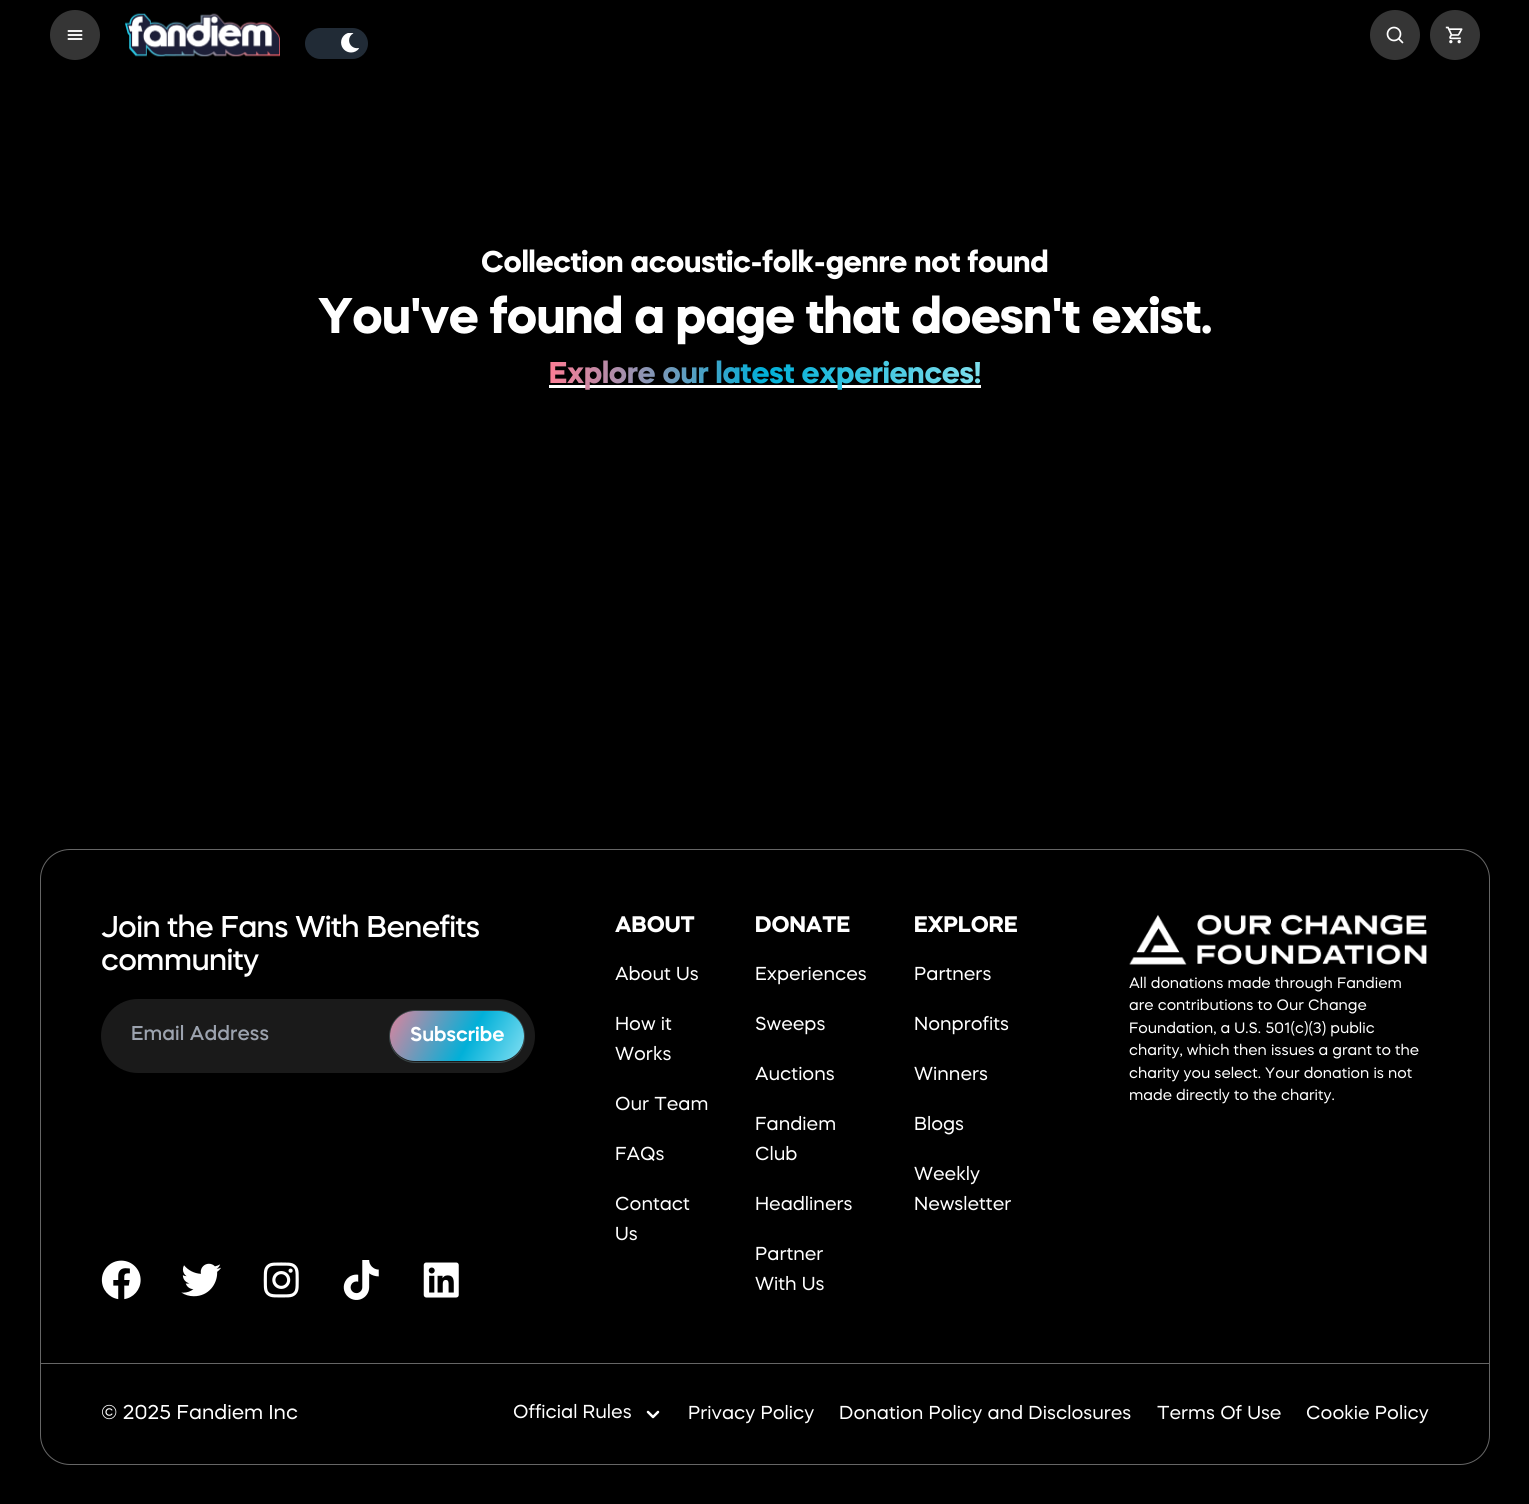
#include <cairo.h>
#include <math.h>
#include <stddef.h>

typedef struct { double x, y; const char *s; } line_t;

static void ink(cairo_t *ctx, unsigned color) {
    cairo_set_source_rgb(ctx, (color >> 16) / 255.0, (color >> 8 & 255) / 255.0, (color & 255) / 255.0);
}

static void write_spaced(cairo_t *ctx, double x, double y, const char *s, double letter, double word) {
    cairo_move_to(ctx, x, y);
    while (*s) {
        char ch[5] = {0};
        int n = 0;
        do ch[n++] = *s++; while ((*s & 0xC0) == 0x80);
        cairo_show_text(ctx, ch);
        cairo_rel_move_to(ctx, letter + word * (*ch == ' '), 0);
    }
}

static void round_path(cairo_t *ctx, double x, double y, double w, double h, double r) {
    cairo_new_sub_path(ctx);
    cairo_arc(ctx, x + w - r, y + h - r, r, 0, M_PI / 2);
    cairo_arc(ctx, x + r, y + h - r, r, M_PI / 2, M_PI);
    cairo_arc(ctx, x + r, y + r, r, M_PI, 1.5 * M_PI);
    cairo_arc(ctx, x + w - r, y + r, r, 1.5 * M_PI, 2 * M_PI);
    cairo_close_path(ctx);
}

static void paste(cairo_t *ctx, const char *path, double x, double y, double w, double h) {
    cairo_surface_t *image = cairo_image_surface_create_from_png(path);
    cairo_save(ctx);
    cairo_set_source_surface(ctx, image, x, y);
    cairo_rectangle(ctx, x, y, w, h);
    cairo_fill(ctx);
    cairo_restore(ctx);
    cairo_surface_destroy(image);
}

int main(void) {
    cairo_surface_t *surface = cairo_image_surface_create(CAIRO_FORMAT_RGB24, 1529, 1504);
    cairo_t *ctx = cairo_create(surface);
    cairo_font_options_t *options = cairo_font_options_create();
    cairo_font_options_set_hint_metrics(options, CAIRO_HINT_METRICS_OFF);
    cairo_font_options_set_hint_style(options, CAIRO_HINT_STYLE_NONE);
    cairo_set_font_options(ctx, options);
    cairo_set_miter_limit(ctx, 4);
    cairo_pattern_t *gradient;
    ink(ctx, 0x000000);
    cairo_paint(ctx);
    ink(ctx, 0x353535);
    cairo_arc(ctx, 75, 35, 25, 0, 2 * M_PI);
    cairo_fill(ctx);
    cairo_new_path(ctx);
    cairo_move_to(ctx, 68.5, 31);
    cairo_line_to(ctx, 81.5, 31);
    cairo_move_to(ctx, 68.5, 35);
    cairo_line_to(ctx, 81.5, 35);
    cairo_move_to(ctx, 68.5, 39);
    cairo_line_to(ctx, 81.5, 39);
    ink(ctx, 0xFFFFFF);
    cairo_set_line_width(ctx, 1.9);
    cairo_set_line_cap(ctx, CAIRO_LINE_CAP_ROUND);
    cairo_stroke(ctx);
    paste(ctx, "media/1.png", 125, 13, 155, 44);
    ink(ctx, 0x212B36);
    round_path(ctx, 305, 28, 63, 31, 15.5);
    cairo_fill(ctx);
    paste(ctx, "media/2.png", 341, 33, 18, 20);
    ink(ctx, 0x353535);
    cairo_arc(ctx, 1395, 35, 25, 0, 2 * M_PI);
    cairo_fill(ctx);
    cairo_arc(ctx, 1394, 34, 6.5, 0, 2 * M_PI);
    ink(ctx, 0xFFFFFF);
    cairo_set_line_width(ctx, 1.7);
    cairo_set_line_cap(ctx, CAIRO_LINE_CAP_BUTT);
    cairo_stroke(ctx);
    cairo_new_path(ctx);
    cairo_move_to(ctx, 1402.5, 42.5);
    cairo_line_to(ctx, 1399, 39);
    cairo_set_line_cap(ctx, CAIRO_LINE_CAP_ROUND);
    cairo_set_line_join(ctx, CAIRO_LINE_JOIN_ROUND);
    cairo_stroke(ctx);
    ink(ctx, 0x353535);
    cairo_arc(ctx, 1455, 35, 25, 0, 2 * M_PI);
    cairo_fill(ctx);
    paste(ctx, "media/3.png", 1445, 26, 18, 18);
    cairo_select_font_face(ctx, "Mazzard", CAIRO_FONT_SLANT_NORMAL, CAIRO_FONT_WEIGHT_BOLD);
    cairo_set_font_size(ctx, 30);
    ink(ctx, 0xFFFFFF);
    write_spaced(ctx, 481, 272, "Collection acoustic-folk-genre not found", -0.15, 0);
    cairo_set_font_size(ctx, 50);
    write_spaced(ctx, 318, 333, "You've found a page that doesn't exist.", -0.6, 0);
    cairo_rectangle(ctx, 549, 385, 432, 3);
    cairo_fill(ctx);
    cairo_set_font_size(ctx, 30);
    gradient = cairo_pattern_create_linear(549, 375, 981, 375);
    cairo_pattern_add_color_stop_rgba(gradient, 0, 0.988, 0.49, 0.584, 1);
    cairo_pattern_add_color_stop_rgba(gradient, 0.5, 0.004, 0.69, 0.847, 1);
    cairo_pattern_add_color_stop_rgba(gradient, 1, 0.494, 0.871, 0.925, 1);
    cairo_set_source(ctx, gradient);
    cairo_pattern_destroy(gradient);
    write_spaced(ctx, 549, 383, "Explore our latest experiences!", -0.15, 0);
    round_path(ctx, 40.5, 849.5, 1449, 615, 29.5);
    ink(ctx, 0x666666);
    cairo_set_line_width(ctx, 1);
    cairo_set_line_cap(ctx, CAIRO_LINE_CAP_BUTT);
    cairo_set_line_join(ctx, CAIRO_LINE_JOIN_MITER);
    cairo_stroke(ctx);
    cairo_select_font_face(ctx, "Mazzard Medium", CAIRO_FONT_SLANT_NORMAL, CAIRO_FONT_WEIGHT_NORMAL);
    ink(ctx, 0xFFFFFF);
    write_spaced(ctx, 101, 937, "Join the Fans With Benefits", -0.6, 0);
    write_spaced(ctx, 101, 970, "community", -0.6, 0);
    ink(ctx, 0x1A1A1A);
    round_path(ctx, 101, 999, 434, 74, 37);
    cairo_fill(ctx);
    cairo_set_font_size(ctx, 20);
    ink(ctx, 0x9CA3AF);
    write_spaced(ctx, 131, 1040, "Email Address", 0.1, 0);
    round_path(ctx, 389.5, 1010.5, 135, 52, 26);
    ink(ctx, 0x3A4648);
    cairo_stroke(ctx);
    gradient = cairo_pattern_create_linear(384, 998, 545, 1083);
    cairo_pattern_add_color_stop_rgba(gradient, 0, 0.988, 0.49, 0.584, 1);
    cairo_pattern_add_color_stop_rgba(gradient, 0.52, 0.004, 0.69, 0.847, 1);
    cairo_pattern_add_color_stop_rgba(gradient, 1, 0.757, 0.965, 1, 1);
    cairo_set_source(ctx, gradient);
    cairo_pattern_destroy(gradient);
    round_path(ctx, 390, 1011, 134, 50, 25);
    cairo_fill(ctx);
    cairo_select_font_face(ctx, "Mazzard SemiBold", CAIRO_FONT_SLANT_NORMAL, CAIRO_FONT_WEIGHT_NORMAL);
    ink(ctx, 0xFFFFFF);
    cairo_move_to(ctx, 410, 1041);
    cairo_show_text(ctx, "Subscribe");
    paste(ctx, "media/4.png", 101, 1260, 40, 40);
    paste(ctx, "media/5.png", 181, 1263, 40, 34);
    paste(ctx, "media/6.png", 263, 1262, 36, 36);
    paste(ctx, "media/7.png", 343, 1260, 36, 40);
    paste(ctx, "media/8.png", 423, 1262, 36, 36);
    cairo_select_font_face(ctx, "Mazzard", CAIRO_FONT_SLANT_NORMAL, CAIRO_FONT_WEIGHT_BOLD);
    cairo_set_font_size(ctx, 22.5);
    cairo_move_to(ctx, 615, 932);
    cairo_show_text(ctx, "ABOUT");
    cairo_select_font_face(ctx, "Mazzard", CAIRO_FONT_SLANT_NORMAL, CAIRO_FONT_WEIGHT_NORMAL);
    cairo_set_font_size(ctx, 18.75);
    {
        static const line_t items[] = {
            {615, 980, "About Us"},
            {615, 1030, "How it"},
            {615, 1060, "Works"},
            {615, 1110, "Our Team"},
            {615, 1160, "FAQs"},
            {615, 1210, "Contact"},
            {615, 1240, "Us"},
        };
        for (size_t i = 0; i < sizeof items / sizeof *items; i++) {
            cairo_move_to(ctx, items[i].x, items[i].y);
            cairo_show_text(ctx, items[i].s);
        }
    }
    cairo_select_font_face(ctx, "Mazzard", CAIRO_FONT_SLANT_NORMAL, CAIRO_FONT_WEIGHT_BOLD);
    cairo_set_font_size(ctx, 22.5);
    cairo_move_to(ctx, 755, 932);
    cairo_show_text(ctx, "DONATE");
    cairo_select_font_face(ctx, "Mazzard", CAIRO_FONT_SLANT_NORMAL, CAIRO_FONT_WEIGHT_NORMAL);
    cairo_set_font_size(ctx, 18.75);
    {
        static const line_t items[] = {
            {755, 980, "Experiences"},
            {755, 1030, "Sweeps"},
            {755, 1080, "Auctions"},
            {755, 1130, "Fandiem"},
            {755, 1160, "Club"},
            {755, 1210, "Headliners"},
            {755, 1260, "Partner"},
            {755, 1290, "With Us"},
        };
        for (size_t i = 0; i < sizeof items / sizeof *items; i++) {
            cairo_move_to(ctx, items[i].x, items[i].y);
            cairo_show_text(ctx, items[i].s);
        }
    }
    cairo_select_font_face(ctx, "Mazzard", CAIRO_FONT_SLANT_NORMAL, CAIRO_FONT_WEIGHT_BOLD);
    cairo_set_font_size(ctx, 22.5);
    cairo_move_to(ctx, 914, 932);
    cairo_show_text(ctx, "EXPLORE");
    cairo_select_font_face(ctx, "Mazzard", CAIRO_FONT_SLANT_NORMAL, CAIRO_FONT_WEIGHT_NORMAL);
    cairo_set_font_size(ctx, 18.75);
    {
        static const line_t items[] = {
            {914, 980, "Partners"},
            {914, 1030, "Nonprofits"},
            {914, 1080, "Winners"},
            {914, 1130, "Blogs"},
            {914, 1180, "Weekly"},
            {914, 1210, "Newsletter"},
        };
        for (size_t i = 0; i < sizeof items / sizeof *items; i++) {
            cairo_move_to(ctx, items[i].x, items[i].y);
            cairo_show_text(ctx, items[i].s);
        }
    }
    paste(ctx, "media/9.png", 1129, 914, 298, 51);
    cairo_set_font_size(ctx, 15);
    {
        static const line_t items[] = {
            {1129, 988, "All donations made through Fandiem"},
            {1129, 1010, "are contributions to Our Change"},
            {1129, 1033, "Foundation, a U.S. 501(c)(3) public"},
            {1129, 1055, "charity, which then issues a grant to the"},
            {1129, 1078, "charity you select. Your donation is not"},
            {1129, 1100, "made directly to the charity."},
        };
        for (size_t i = 0; i < sizeof items / sizeof *items; i++) {
            cairo_move_to(ctx, items[i].x, items[i].y);
            cairo_show_text(ctx, items[i].s);
        }
    }
    ink(ctx, 0x666666);
    cairo_rectangle(ctx, 41, 1363, 1448, 1);
    cairo_fill(ctx);
    cairo_set_font_size(ctx, 20);
    ink(ctx, 0xFFFFFF);
    cairo_move_to(ctx, 101, 1419);
    cairo_show_text(ctx, "© 2025 Fandiem Inc");
    cairo_set_font_size(ctx, 18.75);
    cairo_move_to(ctx, 513, 1418);
    cairo_show_text(ctx, "Official Rules");
    cairo_new_path(ctx);
    cairo_move_to(ctx, 648, 1412);
    cairo_line_to(ctx, 653, 1417);
    cairo_line_to(ctx, 658, 1412);
    cairo_set_line_width(ctx, 2.5);
    cairo_set_line_cap(ctx, CAIRO_LINE_CAP_ROUND);
    cairo_set_line_join(ctx, CAIRO_LINE_JOIN_ROUND);
    cairo_stroke(ctx);
    {
        static const line_t items[] = {
            {688, 1419, "Privacy Policy"},
            {839, 1419, "Donation Policy and Disclosures"},
            {1157, 1419, "Terms Of Use"},
            {1306, 1419, "Cookie Policy"},
        };
        for (size_t i = 0; i < sizeof items / sizeof *items; i++) {
            cairo_move_to(ctx, items[i].x, items[i].y);
            cairo_show_text(ctx, items[i].s);
        }
    }
    cairo_surface_write_to_png(surface, "image.png");
    cairo_font_options_destroy(options);
    cairo_destroy(ctx);
    cairo_surface_destroy(surface);
    return 0;
}
